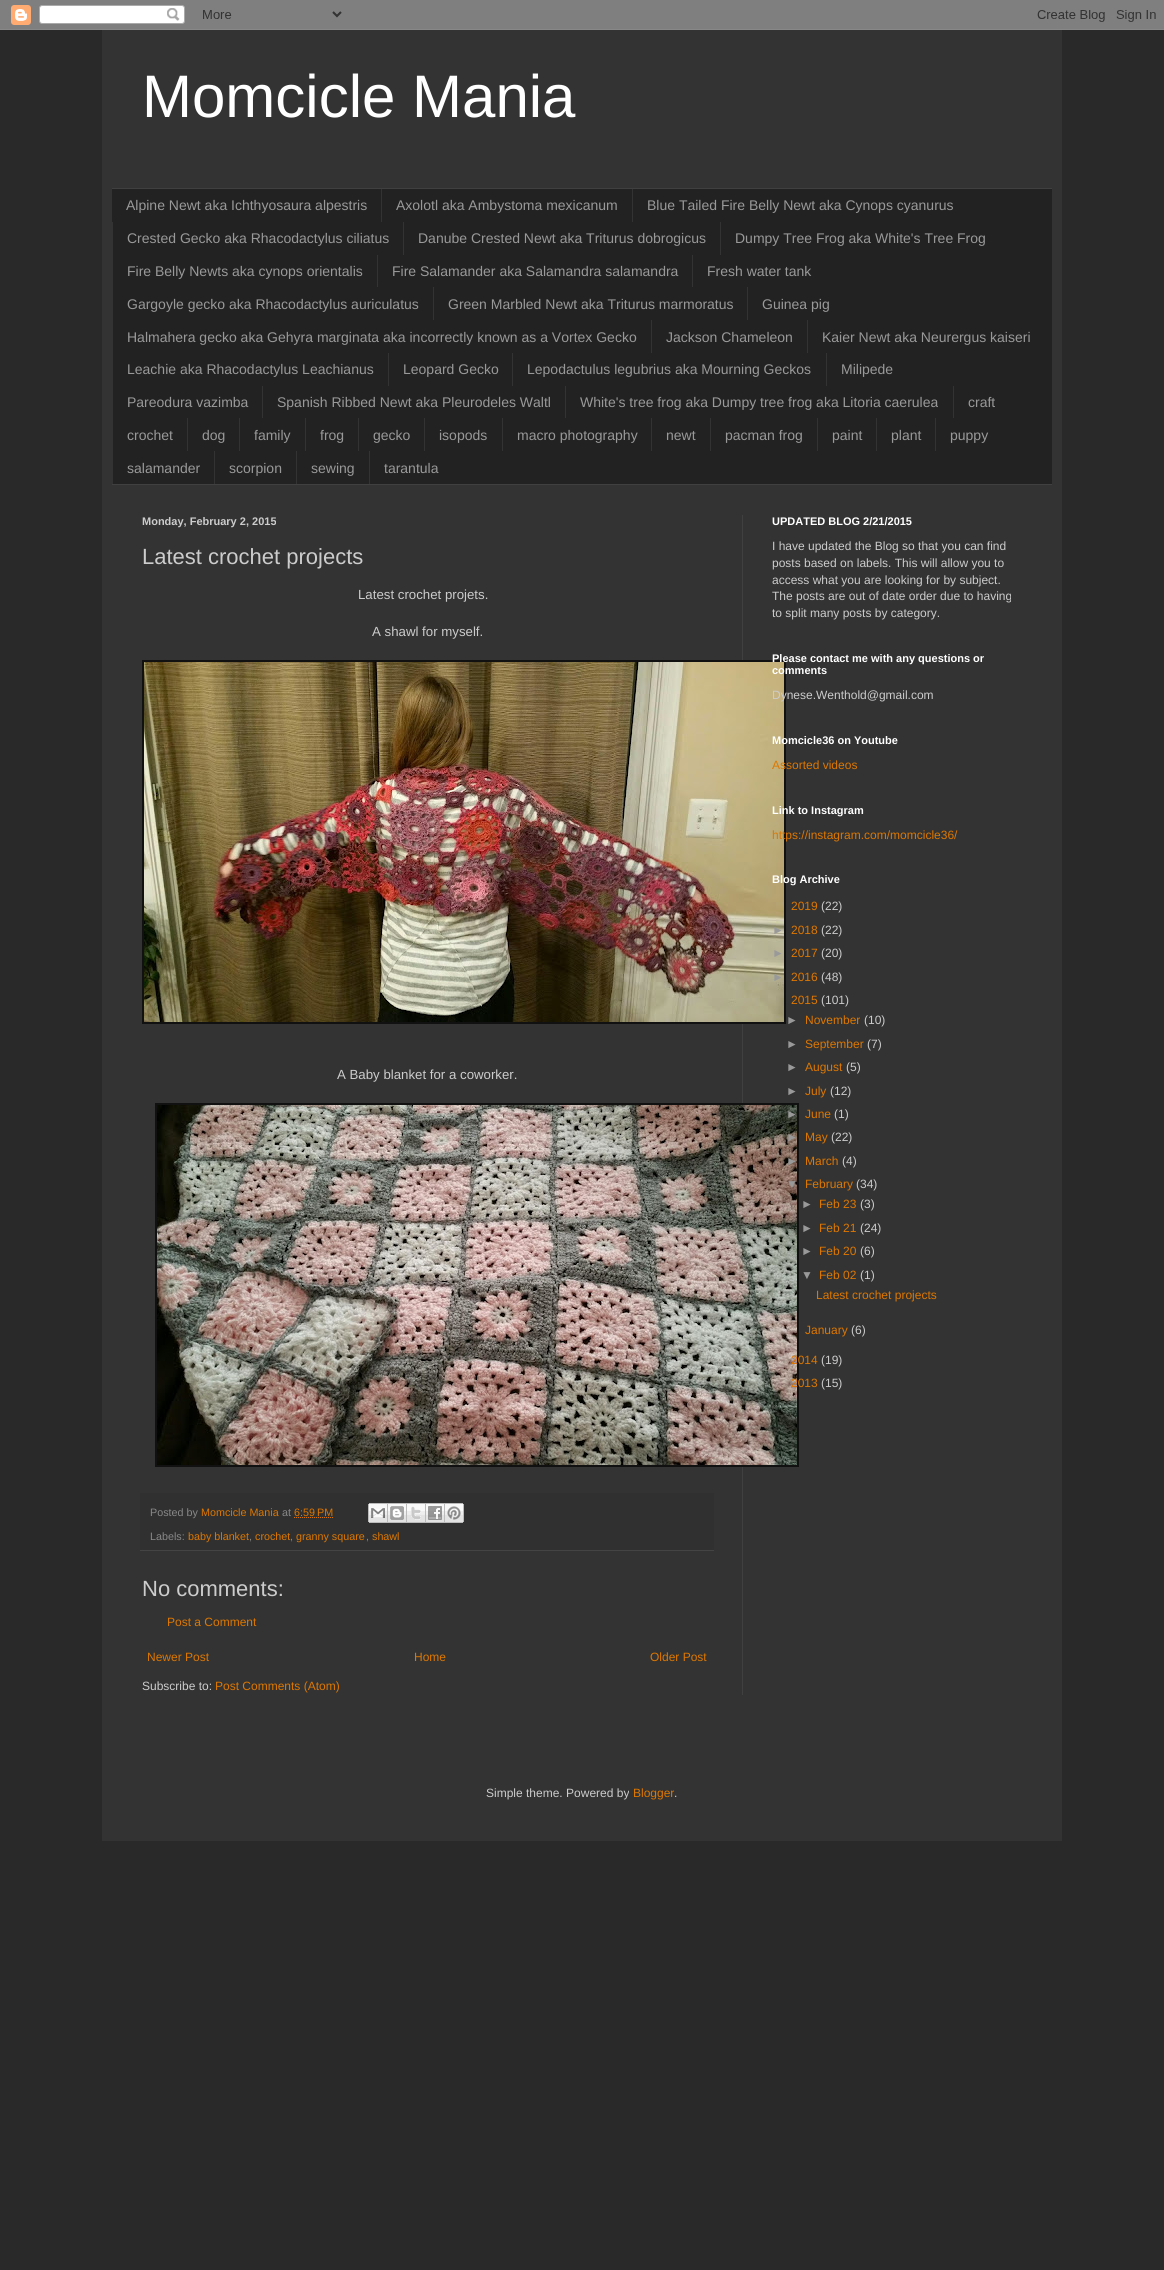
#include <cairo.h>
#include <math.h>
#include <stddef.h>

typedef struct { double x, y; const char *s; } line_t;
typedef struct { double x, y, w, h; unsigned color; } box_t;

static void ink(cairo_t *ctx, unsigned color) {
    cairo_set_source_rgb(ctx, (color >> 16) / 255.0, (color >> 8 & 255) / 255.0, (color & 255) / 255.0);
}

static void paste(cairo_t *ctx, const char *path, double x, double y, double w, double h) {
    cairo_surface_t *image = cairo_image_surface_create_from_png(path);
    cairo_save(ctx);
    cairo_set_source_surface(ctx, image, x, y);
    cairo_rectangle(ctx, x, y, w, h);
    cairo_fill(ctx);
    cairo_restore(ctx);
    cairo_surface_destroy(image);
}

int main(void) {
    cairo_surface_t *surface = cairo_image_surface_create(CAIRO_FORMAT_RGB24, 1164, 2270);
    cairo_t *ctx = cairo_create(surface);
    cairo_font_options_t *options = cairo_font_options_create();
    cairo_font_options_set_hint_metrics(options, CAIRO_HINT_METRICS_OFF);
    cairo_font_options_set_hint_style(options, CAIRO_HINT_STYLE_NONE);
    cairo_set_font_options(ctx, options);
    cairo_set_miter_limit(ctx, 4);
    ink(ctx, 0x292929);
    cairo_paint(ctx);
    paste(ctx, "media/1.png", 0, 0, 1164, 30);
    ink(ctx, 0x333333);
    cairo_rectangle(ctx, 102, 30, 960, 1811);
    cairo_fill(ctx);
    cairo_select_font_face(ctx, "Liberation Sans", CAIRO_FONT_SLANT_NORMAL, CAIRO_FONT_WEIGHT_NORMAL);
    cairo_set_font_size(ctx, 60);
    ink(ctx, 0xFFFFFF);
    cairo_move_to(ctx, 142, 117);
    cairo_show_text(ctx, "Momcicle Mania");
    {
        static const box_t items[] = {
            {112, 189, 940, 295, 0x222222},
            {112, 188, 940, 1, 0x404040},
            {112, 484, 940, 1, 0x404040},
        };
        for (size_t i = 0; i < sizeof items / sizeof *items; i++) {
            ink(ctx, items[i].color);
            cairo_rectangle(ctx, items[i].x, items[i].y, items[i].w, items[i].h);
            cairo_fill(ctx);
        }
    }
    cairo_set_font_size(ctx, 14);
    ink(ctx, 0x999999);
    cairo_move_to(ctx, 126, 210);
    cairo_show_text(ctx, "Alpine Newt aka Ichthyosaura alpestris");
    ink(ctx, 0x333333);
    cairo_rectangle(ctx, 381, 189, 1, 33);
    cairo_fill(ctx);
    ink(ctx, 0x999999);
    cairo_move_to(ctx, 396, 210);
    cairo_show_text(ctx, "Axolotl aka Ambystoma mexicanum");
    ink(ctx, 0x333333);
    cairo_rectangle(ctx, 632, 189, 1, 33);
    cairo_fill(ctx);
    ink(ctx, 0x999999);
    cairo_move_to(ctx, 647, 210);
    cairo_show_text(ctx, "Blue Tailed Fire Belly Newt aka Cynops cyanurus");
    ink(ctx, 0x333333);
    cairo_rectangle(ctx, 112, 222, 1, 262);
    cairo_fill(ctx);
    ink(ctx, 0x999999);
    cairo_move_to(ctx, 127, 243);
    cairo_show_text(ctx, "Crested Gecko aka Rhacodactylus ciliatus");
    ink(ctx, 0x333333);
    cairo_rectangle(ctx, 403, 222, 1, 33);
    cairo_fill(ctx);
    ink(ctx, 0x999999);
    cairo_move_to(ctx, 418, 243);
    cairo_show_text(ctx, "Danube Crested Newt aka Triturus dobrogicus");
    ink(ctx, 0x333333);
    cairo_rectangle(ctx, 720, 222, 1, 33);
    cairo_fill(ctx);
    ink(ctx, 0x999999);
    cairo_move_to(ctx, 735, 243);
    cairo_show_text(ctx, "Dumpy Tree Frog aka White's Tree Frog");
    cairo_move_to(ctx, 127, 276);
    cairo_show_text(ctx, "Fire Belly Newts aka cynops orientalis");
    ink(ctx, 0x333333);
    cairo_rectangle(ctx, 377, 255, 1, 32);
    cairo_fill(ctx);
    ink(ctx, 0x999999);
    cairo_move_to(ctx, 392, 276);
    cairo_show_text(ctx, "Fire Salamander aka Salamandra salamandra");
    ink(ctx, 0x333333);
    cairo_rectangle(ctx, 692, 255, 1, 32);
    cairo_fill(ctx);
    ink(ctx, 0x999999);
    cairo_move_to(ctx, 707, 276);
    cairo_show_text(ctx, "Fresh water tank");
    cairo_move_to(ctx, 127, 309);
    cairo_show_text(ctx, "Gargoyle gecko aka Rhacodactylus auriculatus");
    ink(ctx, 0x333333);
    cairo_rectangle(ctx, 433, 287, 1, 33);
    cairo_fill(ctx);
    ink(ctx, 0x999999);
    cairo_move_to(ctx, 448, 309);
    cairo_show_text(ctx, "Green Marbled Newt aka Triturus marmoratus");
    ink(ctx, 0x333333);
    cairo_rectangle(ctx, 747, 287, 1, 33);
    cairo_fill(ctx);
    ink(ctx, 0x999999);
    cairo_move_to(ctx, 762, 309);
    cairo_show_text(ctx, "Guinea pig");
    cairo_move_to(ctx, 127, 342);
    cairo_show_text(ctx, "Halmahera gecko aka Gehyra marginata aka incorrectly known as a Vortex Gecko");
    ink(ctx, 0x333333);
    cairo_rectangle(ctx, 651, 320, 1, 33);
    cairo_fill(ctx);
    ink(ctx, 0x999999);
    cairo_move_to(ctx, 666, 342);
    cairo_show_text(ctx, "Jackson Chameleon");
    ink(ctx, 0x333333);
    cairo_rectangle(ctx, 807, 320, 1, 33);
    cairo_fill(ctx);
    ink(ctx, 0x999999);
    cairo_move_to(ctx, 822, 342);
    cairo_show_text(ctx, "Kaier Newt aka Neurergus kaiseri");
    cairo_move_to(ctx, 127, 374);
    cairo_show_text(ctx, "Leachie aka Rhacodactylus Leachianus");
    ink(ctx, 0x333333);
    cairo_rectangle(ctx, 388, 353, 1, 33);
    cairo_fill(ctx);
    ink(ctx, 0x999999);
    cairo_move_to(ctx, 403, 374);
    cairo_show_text(ctx, "Leopard Gecko");
    ink(ctx, 0x333333);
    cairo_rectangle(ctx, 512, 353, 1, 33);
    cairo_fill(ctx);
    ink(ctx, 0x999999);
    cairo_move_to(ctx, 527, 374);
    cairo_show_text(ctx, "Lepodactulus legubrius aka Mourning Geckos");
    ink(ctx, 0x333333);
    cairo_rectangle(ctx, 826, 353, 1, 33);
    cairo_fill(ctx);
    ink(ctx, 0x999999);
    cairo_move_to(ctx, 841, 374);
    cairo_show_text(ctx, "Milipede");
    cairo_move_to(ctx, 127, 407);
    cairo_show_text(ctx, "Pareodura vazimba");
    ink(ctx, 0x333333);
    cairo_rectangle(ctx, 262, 386, 1, 32);
    cairo_fill(ctx);
    ink(ctx, 0x999999);
    cairo_move_to(ctx, 277, 407);
    cairo_show_text(ctx, "Spanish Ribbed Newt aka Pleurodeles Waltl");
    ink(ctx, 0x333333);
    cairo_rectangle(ctx, 565, 386, 1, 32);
    cairo_fill(ctx);
    ink(ctx, 0x999999);
    cairo_move_to(ctx, 580, 407);
    cairo_show_text(ctx, "White's tree frog aka Dumpy tree frog aka Litoria caerulea");
    ink(ctx, 0x333333);
    cairo_rectangle(ctx, 953, 386, 1, 32);
    cairo_fill(ctx);
    ink(ctx, 0x999999);
    cairo_move_to(ctx, 968, 407);
    cairo_show_text(ctx, "craft");
    cairo_move_to(ctx, 127, 440);
    cairo_show_text(ctx, "crochet");
    ink(ctx, 0x333333);
    cairo_rectangle(ctx, 187, 418, 1, 33);
    cairo_fill(ctx);
    ink(ctx, 0x999999);
    cairo_move_to(ctx, 202, 440);
    cairo_show_text(ctx, "dog");
    ink(ctx, 0x333333);
    cairo_rectangle(ctx, 239, 418, 1, 33);
    cairo_fill(ctx);
    ink(ctx, 0x999999);
    cairo_move_to(ctx, 254, 440);
    cairo_show_text(ctx, "family");
    ink(ctx, 0x333333);
    cairo_rectangle(ctx, 305, 418, 1, 33);
    cairo_fill(ctx);
    ink(ctx, 0x999999);
    cairo_move_to(ctx, 320, 440);
    cairo_show_text(ctx, "frog");
    ink(ctx, 0x333333);
    cairo_rectangle(ctx, 358, 418, 1, 33);
    cairo_fill(ctx);
    ink(ctx, 0x999999);
    cairo_move_to(ctx, 373, 440);
    cairo_show_text(ctx, "gecko");
    ink(ctx, 0x333333);
    cairo_rectangle(ctx, 424, 418, 1, 33);
    cairo_fill(ctx);
    ink(ctx, 0x999999);
    cairo_move_to(ctx, 439, 440);
    cairo_show_text(ctx, "isopods");
    ink(ctx, 0x333333);
    cairo_rectangle(ctx, 502, 418, 1, 33);
    cairo_fill(ctx);
    ink(ctx, 0x999999);
    cairo_move_to(ctx, 517, 440);
    cairo_show_text(ctx, "macro photography");
    ink(ctx, 0x333333);
    cairo_rectangle(ctx, 651, 418, 1, 33);
    cairo_fill(ctx);
    ink(ctx, 0x999999);
    cairo_move_to(ctx, 666, 440);
    cairo_show_text(ctx, "newt");
    ink(ctx, 0x333333);
    cairo_rectangle(ctx, 710, 418, 1, 33);
    cairo_fill(ctx);
    ink(ctx, 0x999999);
    cairo_move_to(ctx, 725, 440);
    cairo_show_text(ctx, "pacman frog");
    ink(ctx, 0x333333);
    cairo_rectangle(ctx, 817, 418, 1, 33);
    cairo_fill(ctx);
    ink(ctx, 0x999999);
    cairo_move_to(ctx, 832, 440);
    cairo_show_text(ctx, "paint");
    ink(ctx, 0x333333);
    cairo_rectangle(ctx, 876, 418, 1, 33);
    cairo_fill(ctx);
    ink(ctx, 0x999999);
    cairo_move_to(ctx, 891, 440);
    cairo_show_text(ctx, "plant");
    ink(ctx, 0x333333);
    cairo_rectangle(ctx, 935, 418, 1, 33);
    cairo_fill(ctx);
    ink(ctx, 0x999999);
    cairo_move_to(ctx, 950, 440);
    cairo_show_text(ctx, "puppy");
    cairo_move_to(ctx, 127, 473);
    cairo_show_text(ctx, "salamander");
    ink(ctx, 0x333333);
    cairo_rectangle(ctx, 214, 451, 1, 33);
    cairo_fill(ctx);
    ink(ctx, 0x999999);
    cairo_move_to(ctx, 229, 473);
    cairo_show_text(ctx, "scorpion");
    ink(ctx, 0x333333);
    cairo_rectangle(ctx, 296, 451, 1, 33);
    cairo_fill(ctx);
    ink(ctx, 0x999999);
    cairo_move_to(ctx, 311, 473);
    cairo_show_text(ctx, "sewing");
    ink(ctx, 0x333333);
    cairo_rectangle(ctx, 369, 451, 1, 33);
    cairo_fill(ctx);
    ink(ctx, 0x999999);
    cairo_move_to(ctx, 384, 473);
    cairo_show_text(ctx, "tarantula");
    ink(ctx, 0x404040);
    cairo_rectangle(ctx, 742, 515, 1, 1180);
    cairo_fill(ctx);
    cairo_select_font_face(ctx, "Liberation Sans", CAIRO_FONT_SLANT_NORMAL, CAIRO_FONT_WEIGHT_BOLD);
    cairo_set_font_size(ctx, 11);
    ink(ctx, 0xCCCCCC);
    cairo_move_to(ctx, 142, 525);
    cairo_show_text(ctx, "Monday, February 2, 2015");
    cairo_select_font_face(ctx, "Liberation Sans", CAIRO_FONT_SLANT_NORMAL, CAIRO_FONT_WEIGHT_NORMAL);
    cairo_set_font_size(ctx, 22);
    cairo_move_to(ctx, 142, 564);
    cairo_show_text(ctx, "Latest crochet projects");
    cairo_set_font_size(ctx, 13.25);
    cairo_move_to(ctx, 358, 599);
    cairo_show_text(ctx, "Latest crochet projets.");
    cairo_move_to(ctx, 372, 636);
    cairo_show_text(ctx, "A shawl for myself.");
    ink(ctx, 0x111111);
    cairo_rectangle(ctx, 142, 660, 644, 364);
    cairo_fill(ctx);
    paste(ctx, "media/2.png", 144, 662, 640, 360);
    ink(ctx, 0xCCCCCC);
    cairo_move_to(ctx, 337, 1079);
    cairo_show_text(ctx, "A Baby blanket for a coworker.");
    ink(ctx, 0x111111);
    cairo_rectangle(ctx, 155, 1103, 644, 364);
    cairo_fill(ctx);
    paste(ctx, "media/3.png", 157, 1105, 640, 360);
    ink(ctx, 0x303030);
    cairo_rectangle(ctx, 140, 1493, 574, 57);
    cairo_fill(ctx);
    ink(ctx, 0x444444);
    cairo_rectangle(ctx, 140, 1550, 574, 1);
    cairo_fill(ctx);
    cairo_set_font_size(ctx, 10.75);
    ink(ctx, 0x888888);
    cairo_move_to(ctx, 150, 1516);
    cairo_show_text(ctx, "Posted by");
    ink(ctx, 0xDD7700);
    cairo_move_to(ctx, 201, 1516);
    cairo_show_text(ctx, "Momcicle Mania");
    ink(ctx, 0x888888);
    cairo_move_to(ctx, 282, 1516);
    cairo_show_text(ctx, "at");
    ink(ctx, 0xDD7700);
    cairo_move_to(ctx, 294, 1516);
    cairo_show_text(ctx, "6:59 PM");
    cairo_new_path(ctx);
    cairo_move_to(ctx, 294, 1517.5);
    cairo_line_to(ctx, 333.5, 1517.5);
    cairo_set_line_width(ctx, 1);
    cairo_set_dash(ctx, (double[]){1, 1}, 2, 0);
    cairo_stroke(ctx);
    paste(ctx, "media/4.png", 368, 1503, 20, 20);
    paste(ctx, "media/5.png", 388, 1503, 19, 20);
    paste(ctx, "media/6.png", 407, 1503, 19, 20);
    paste(ctx, "media/7.png", 426, 1503, 19, 20);
    paste(ctx, "media/8.png", 445, 1503, 19, 20);
    ink(ctx, 0x888888);
    cairo_move_to(ctx, 150, 1540);
    cairo_show_text(ctx, "Labels:");
    ink(ctx, 0xDD7700);
    cairo_move_to(ctx, 188, 1540);
    cairo_show_text(ctx, "baby blanket");
    ink(ctx, 0x888888);
    cairo_move_to(ctx, 249, 1540);
    cairo_show_text(ctx, ",");
    ink(ctx, 0xDD7700);
    cairo_move_to(ctx, 255, 1540);
    cairo_show_text(ctx, "crochet");
    ink(ctx, 0x888888);
    cairo_move_to(ctx, 290, 1540);
    cairo_show_text(ctx, ",");
    ink(ctx, 0xDD7700);
    cairo_move_to(ctx, 296, 1540);
    cairo_show_text(ctx, "granny square");
    ink(ctx, 0x888888);
    cairo_move_to(ctx, 366, 1540);
    cairo_show_text(ctx, ",");
    ink(ctx, 0xDD7700);
    cairo_move_to(ctx, 372, 1540);
    cairo_show_text(ctx, "shawl");
    cairo_set_font_size(ctx, 22);
    ink(ctx, 0xCCCCCC);
    cairo_move_to(ctx, 142, 1596);
    cairo_show_text(ctx, "No comments:");
    cairo_set_font_size(ctx, 12);
    ink(ctx, 0xDD7700);
    {
        static const line_t items[] = {
            {167, 1626, "Post a Comment"},
            {147, 1661, "Newer Post"},
            {414, 1661, "Home"},
            {650, 1661, "Older Post"},
        };
        for (size_t i = 0; i < sizeof items / sizeof *items; i++) {
            cairo_move_to(ctx, items[i].x, items[i].y);
            cairo_show_text(ctx, items[i].s);
        }
    }
    ink(ctx, 0xCCCCCC);
    cairo_move_to(ctx, 142, 1690);
    cairo_show_text(ctx, "Subscribe to:");
    ink(ctx, 0xDD7700);
    cairo_move_to(ctx, 215, 1690);
    cairo_show_text(ctx, "Post Comments (Atom)");
    cairo_select_font_face(ctx, "Liberation Sans", CAIRO_FONT_SLANT_NORMAL, CAIRO_FONT_WEIGHT_BOLD);
    cairo_set_font_size(ctx, 11);
    ink(ctx, 0xFFFFFF);
    cairo_move_to(ctx, 772, 525);
    cairo_show_text(ctx, "UPDATED BLOG 2/21/2015");
    cairo_select_font_face(ctx, "Liberation Sans", CAIRO_FONT_SLANT_NORMAL, CAIRO_FONT_WEIGHT_NORMAL);
    cairo_set_font_size(ctx, 12);
    ink(ctx, 0xCCCCCC);
    {
        static const line_t items[] = {
            {772, 550, "I have updated the Blog so that you can find"},
            {772, 567, "posts based on labels. This will allow you to"},
            {772, 584, "access what you are looking for by subject."},
            {772, 600, "The posts are out of date order due to having"},
            {772, 617, "to split many posts by category."},
        };
        for (size_t i = 0; i < sizeof items / sizeof *items; i++) {
            cairo_move_to(ctx, items[i].x, items[i].y);
            cairo_show_text(ctx, items[i].s);
        }
    }
    cairo_select_font_face(ctx, "Liberation Sans", CAIRO_FONT_SLANT_NORMAL, CAIRO_FONT_WEIGHT_BOLD);
    cairo_set_font_size(ctx, 11);
    ink(ctx, 0xFFFFFF);
    cairo_move_to(ctx, 772, 662);
    cairo_show_text(ctx, "Please contact me with any questions or");
    cairo_move_to(ctx, 772, 674);
    cairo_show_text(ctx, "comments");
    cairo_select_font_face(ctx, "Liberation Sans", CAIRO_FONT_SLANT_NORMAL, CAIRO_FONT_WEIGHT_NORMAL);
    cairo_set_font_size(ctx, 12);
    ink(ctx, 0xCCCCCC);
    cairo_move_to(ctx, 772, 699);
    cairo_show_text(ctx, "Dynese.Wenthold@gmail.com");
    cairo_select_font_face(ctx, "Liberation Sans", CAIRO_FONT_SLANT_NORMAL, CAIRO_FONT_WEIGHT_BOLD);
    cairo_set_font_size(ctx, 11);
    ink(ctx, 0xFFFFFF);
    cairo_move_to(ctx, 772, 744);
    cairo_show_text(ctx, "Momcicle36 on Youtube");
    cairo_select_font_face(ctx, "Liberation Sans", CAIRO_FONT_SLANT_NORMAL, CAIRO_FONT_WEIGHT_NORMAL);
    cairo_set_font_size(ctx, 12);
    ink(ctx, 0xDD7700);
    cairo_move_to(ctx, 772, 769);
    cairo_show_text(ctx, "Assorted videos");
    cairo_select_font_face(ctx, "Liberation Sans", CAIRO_FONT_SLANT_NORMAL, CAIRO_FONT_WEIGHT_BOLD);
    cairo_set_font_size(ctx, 11);
    ink(ctx, 0xFFFFFF);
    cairo_move_to(ctx, 772, 814);
    cairo_show_text(ctx, "Link to Instagram");
    cairo_select_font_face(ctx, "Liberation Sans", CAIRO_FONT_SLANT_NORMAL, CAIRO_FONT_WEIGHT_NORMAL);
    cairo_set_font_size(ctx, 12);
    ink(ctx, 0xDD7700);
    cairo_move_to(ctx, 772, 839);
    cairo_show_text(ctx, "https://instagram.com/momcicle36/");
    cairo_select_font_face(ctx, "Liberation Sans", CAIRO_FONT_SLANT_NORMAL, CAIRO_FONT_WEIGHT_BOLD);
    cairo_set_font_size(ctx, 11);
    ink(ctx, 0xFFFFFF);
    cairo_move_to(ctx, 772, 883);
    cairo_show_text(ctx, "Blog Archive");
    cairo_select_font_face(ctx, "Liberation Sans", CAIRO_FONT_SLANT_NORMAL, CAIRO_FONT_WEIGHT_NORMAL);
    cairo_set_font_size(ctx, 12);
    ink(ctx, 0xDD7700);
    cairo_move_to(ctx, 791, 910);
    cairo_show_text(ctx, "2019");
    ink(ctx, 0xCCCCCC);
    cairo_move_to(ctx, 821, 910);
    cairo_show_text(ctx, "(22)");
    ink(ctx, 0x999999);
    cairo_move_to(ctx, 772, 934);
    cairo_show_text(ctx, "►");
    ink(ctx, 0xDD7700);
    cairo_move_to(ctx, 791, 934);
    cairo_show_text(ctx, "2018");
    ink(ctx, 0xCCCCCC);
    cairo_move_to(ctx, 821, 934);
    cairo_show_text(ctx, "(22)");
    ink(ctx, 0x999999);
    cairo_move_to(ctx, 772, 957);
    cairo_show_text(ctx, "►");
    ink(ctx, 0xDD7700);
    cairo_move_to(ctx, 791, 957);
    cairo_show_text(ctx, "2017");
    ink(ctx, 0xCCCCCC);
    cairo_move_to(ctx, 821, 957);
    cairo_show_text(ctx, "(20)");
    ink(ctx, 0x999999);
    cairo_move_to(ctx, 772, 981);
    cairo_show_text(ctx, "►");
    ink(ctx, 0xDD7700);
    cairo_move_to(ctx, 791, 981);
    cairo_show_text(ctx, "2016");
    ink(ctx, 0xCCCCCC);
    cairo_move_to(ctx, 821, 981);
    cairo_show_text(ctx, "(48)");
    ink(ctx, 0xDD7700);
    cairo_move_to(ctx, 791, 1004);
    cairo_show_text(ctx, "2015");
    ink(ctx, 0xCCCCCC);
    cairo_move_to(ctx, 821, 1004);
    cairo_show_text(ctx, "(101)");
    ink(ctx, 0x999999);
    cairo_move_to(ctx, 786, 1024);
    cairo_show_text(ctx, "►");
    ink(ctx, 0xDD7700);
    cairo_move_to(ctx, 805, 1024);
    cairo_show_text(ctx, "November");
    ink(ctx, 0xCCCCCC);
    cairo_move_to(ctx, 864, 1024);
    cairo_show_text(ctx, "(10)");
    ink(ctx, 0x999999);
    cairo_move_to(ctx, 786, 1048);
    cairo_show_text(ctx, "►");
    ink(ctx, 0xDD7700);
    cairo_move_to(ctx, 805, 1048);
    cairo_show_text(ctx, "September");
    ink(ctx, 0xCCCCCC);
    cairo_move_to(ctx, 867, 1048);
    cairo_show_text(ctx, "(7)");
    ink(ctx, 0x999999);
    cairo_move_to(ctx, 786, 1071);
    cairo_show_text(ctx, "►");
    ink(ctx, 0xDD7700);
    cairo_move_to(ctx, 805, 1071);
    cairo_show_text(ctx, "August");
    ink(ctx, 0xCCCCCC);
    cairo_move_to(ctx, 846, 1071);
    cairo_show_text(ctx, "(5)");
    ink(ctx, 0x999999);
    cairo_move_to(ctx, 786, 1095);
    cairo_show_text(ctx, "►");
    ink(ctx, 0xDD7700);
    cairo_move_to(ctx, 805, 1095);
    cairo_show_text(ctx, "July");
    ink(ctx, 0xCCCCCC);
    cairo_move_to(ctx, 830, 1095);
    cairo_show_text(ctx, "(12)");
    ink(ctx, 0x999999);
    cairo_move_to(ctx, 786, 1118);
    cairo_show_text(ctx, "►");
    ink(ctx, 0xDD7700);
    cairo_move_to(ctx, 805, 1118);
    cairo_show_text(ctx, "June");
    ink(ctx, 0xCCCCCC);
    cairo_move_to(ctx, 834, 1118);
    cairo_show_text(ctx, "(1)");
    ink(ctx, 0x999999);
    cairo_move_to(ctx, 786, 1141);
    cairo_show_text(ctx, "►");
    ink(ctx, 0xDD7700);
    cairo_move_to(ctx, 805, 1141);
    cairo_show_text(ctx, "May");
    ink(ctx, 0xCCCCCC);
    cairo_move_to(ctx, 831, 1141);
    cairo_show_text(ctx, "(22)");
    ink(ctx, 0x999999);
    cairo_move_to(ctx, 786, 1165);
    cairo_show_text(ctx, "►");
    ink(ctx, 0xDD7700);
    cairo_move_to(ctx, 805, 1165);
    cairo_show_text(ctx, "March");
    ink(ctx, 0xCCCCCC);
    cairo_move_to(ctx, 842, 1165);
    cairo_show_text(ctx, "(4)");
    ink(ctx, 0x999999);
    cairo_move_to(ctx, 786, 1188);
    cairo_show_text(ctx, "▼");
    ink(ctx, 0xDD7700);
    cairo_move_to(ctx, 805, 1188);
    cairo_show_text(ctx, "February");
    ink(ctx, 0xCCCCCC);
    cairo_move_to(ctx, 856, 1188);
    cairo_show_text(ctx, "(34)");
    ink(ctx, 0x999999);
    cairo_move_to(ctx, 801, 1208);
    cairo_show_text(ctx, "►");
    ink(ctx, 0xDD7700);
    cairo_move_to(ctx, 819, 1208);
    cairo_show_text(ctx, "Feb 23");
    ink(ctx, 0xCCCCCC);
    cairo_move_to(ctx, 860, 1208);
    cairo_show_text(ctx, "(3)");
    ink(ctx, 0x999999);
    cairo_move_to(ctx, 801, 1232);
    cairo_show_text(ctx, "►");
    ink(ctx, 0xDD7700);
    cairo_move_to(ctx, 819, 1232);
    cairo_show_text(ctx, "Feb 21");
    ink(ctx, 0xCCCCCC);
    cairo_move_to(ctx, 860, 1232);
    cairo_show_text(ctx, "(24)");
    ink(ctx, 0x999999);
    cairo_move_to(ctx, 801, 1255);
    cairo_show_text(ctx, "►");
    ink(ctx, 0xDD7700);
    cairo_move_to(ctx, 819, 1255);
    cairo_show_text(ctx, "Feb 20");
    ink(ctx, 0xCCCCCC);
    cairo_move_to(ctx, 860, 1255);
    cairo_show_text(ctx, "(6)");
    ink(ctx, 0x999999);
    cairo_move_to(ctx, 801, 1279);
    cairo_show_text(ctx, "▼");
    ink(ctx, 0xDD7700);
    cairo_move_to(ctx, 819, 1279);
    cairo_show_text(ctx, "Feb 02");
    ink(ctx, 0xCCCCCC);
    cairo_move_to(ctx, 860, 1279);
    cairo_show_text(ctx, "(1)");
    ink(ctx, 0xDD7700);
    cairo_move_to(ctx, 816, 1299);
    cairo_show_text(ctx, "Latest crochet projects");
    cairo_move_to(ctx, 805, 1334);
    cairo_show_text(ctx, "January");
    ink(ctx, 0xCCCCCC);
    cairo_move_to(ctx, 851, 1334);
    cairo_show_text(ctx, "(6)");
    ink(ctx, 0xDD7700);
    cairo_move_to(ctx, 791, 1364);
    cairo_show_text(ctx, "2014");
    ink(ctx, 0xCCCCCC);
    cairo_move_to(ctx, 821, 1364);
    cairo_show_text(ctx, "(19)");
    ink(ctx, 0xDD7700);
    cairo_move_to(ctx, 791, 1387);
    cairo_show_text(ctx, "2013");
    ink(ctx, 0xCCCCCC);
    cairo_move_to(ctx, 821, 1387);
    cairo_show_text(ctx, "(15)");
    cairo_move_to(ctx, 486, 1797);
    cairo_show_text(ctx, "Simple theme. Powered by");
    ink(ctx, 0xDD7700);
    cairo_move_to(ctx, 633, 1797);
    cairo_show_text(ctx, "Blogger");
    ink(ctx, 0xCCCCCC);
    cairo_move_to(ctx, 674, 1797);
    cairo_show_text(ctx, ".");
    cairo_surface_write_to_png(surface, "image.png");
    cairo_font_options_destroy(options);
    cairo_destroy(ctx);
    cairo_surface_destroy(surface);
    return 0;
}
